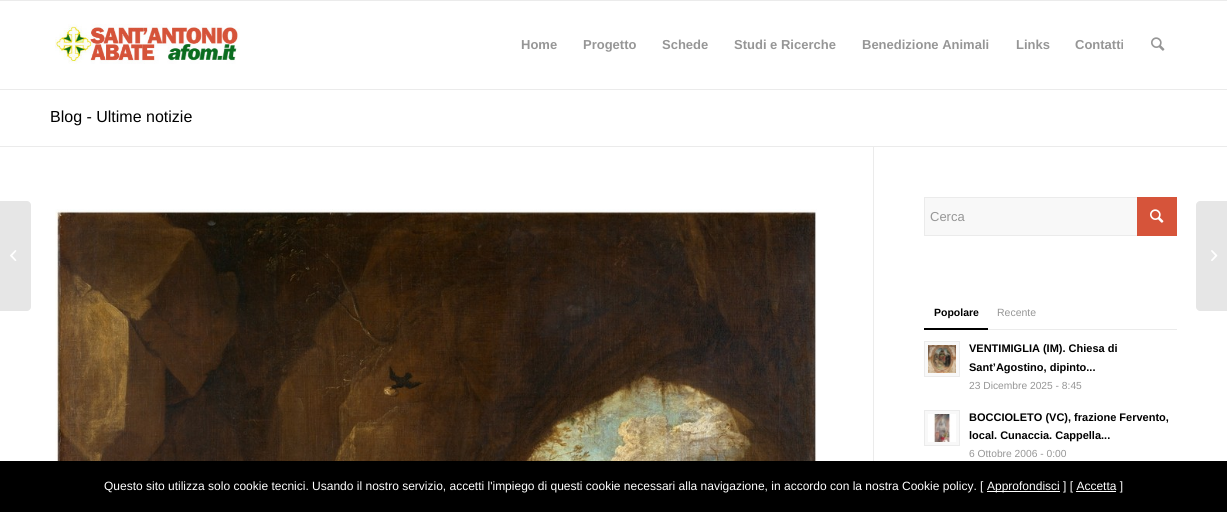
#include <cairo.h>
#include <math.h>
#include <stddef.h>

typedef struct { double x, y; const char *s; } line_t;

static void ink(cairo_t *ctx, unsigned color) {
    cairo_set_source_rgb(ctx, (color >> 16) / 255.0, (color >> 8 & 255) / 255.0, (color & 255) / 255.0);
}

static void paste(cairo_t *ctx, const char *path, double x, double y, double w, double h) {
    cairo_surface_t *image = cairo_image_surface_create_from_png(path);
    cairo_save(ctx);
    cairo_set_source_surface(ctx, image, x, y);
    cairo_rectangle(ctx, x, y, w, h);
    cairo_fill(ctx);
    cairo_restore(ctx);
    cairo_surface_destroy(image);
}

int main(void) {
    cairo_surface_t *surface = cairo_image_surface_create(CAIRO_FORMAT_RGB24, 1227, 512);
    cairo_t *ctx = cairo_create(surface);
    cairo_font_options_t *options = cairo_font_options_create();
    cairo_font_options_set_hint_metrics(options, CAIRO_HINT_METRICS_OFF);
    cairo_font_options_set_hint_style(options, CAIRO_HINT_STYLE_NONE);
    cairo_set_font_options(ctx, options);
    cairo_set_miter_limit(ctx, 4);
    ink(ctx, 0xFFFFFF);
    cairo_paint(ctx);
    ink(ctx, 0xEBEBEB);
    cairo_rectangle(ctx, 0, 0, 1227, 1);
    cairo_fill(ctx);
    cairo_rectangle(ctx, 0, 89, 1227, 1);
    cairo_fill(ctx);
    paste(ctx, "media/1.png", 55, 24, 185, 40);
    cairo_select_font_face(ctx, "Liberation Sans", CAIRO_FONT_SLANT_NORMAL, CAIRO_FONT_WEIGHT_BOLD);
    cairo_set_font_size(ctx, 13);
    ink(ctx, 0x969696);
    {
        static const line_t items[] = {
            {521, 49, "Home"},
            {583, 49, "Progetto"},
            {662, 49, "Schede"},
            {734, 49, "Studi e Ricerche"},
            {862, 49, "Benedizione Animali"},
            {1016, 49, "Links"},
            {1075, 49, "Contatti"},
        };
        for (size_t i = 0; i < sizeof items / sizeof *items; i++) {
            cairo_move_to(ctx, items[i].x, items[i].y);
            cairo_show_text(ctx, items[i].s);
        }
    }
    paste(ctx, "media/2.png", 1151, 37, 14, 14);
    ink(ctx, 0xE6E6E6);
    cairo_new_path(ctx);
    cairo_move_to(ctx, 0, 201);
    cairo_line_to(ctx, 27, 201);
    cairo_curve_to(ctx, 29, 201, 31, 203, 31, 205);
    cairo_line_to(ctx, 31, 307);
    cairo_curve_to(ctx, 31, 309, 29, 311, 27, 311);
    cairo_line_to(ctx, 0, 311);
    cairo_close_path(ctx);
    cairo_fill(ctx);
    paste(ctx, "media/3.png", 10, 250, 7, 11);
    cairo_select_font_face(ctx, "Liberation Sans", CAIRO_FONT_SLANT_NORMAL, CAIRO_FONT_WEIGHT_NORMAL);
    cairo_set_font_size(ctx, 16);
    ink(ctx, 0x000000);
    cairo_move_to(ctx, 50, 122);
    cairo_show_text(ctx, "Blog - Ultime notizie");
    ink(ctx, 0xEBEBEB);
    cairo_rectangle(ctx, 0, 146, 1227, 1);
    cairo_fill(ctx);
    cairo_rectangle(ctx, 873, 147, 1, 314);
    cairo_fill(ctx);
    paste(ctx, "media/4.png", 55, 209, 762, 252);
    ink(ctx, 0xF8F8F8);
    cairo_rectangle(ctx, 925, 198, 212, 37);
    cairo_fill(ctx);
    cairo_rectangle(ctx, 924.5, 197.5, 252, 38);
    ink(ctx, 0xEBEBEB);
    cairo_set_line_width(ctx, 1);
    cairo_stroke(ctx);
    cairo_set_font_size(ctx, 13);
    ink(ctx, 0x969696);
    cairo_move_to(ctx, 930, 221);
    cairo_show_text(ctx, "Cerca");
    ink(ctx, 0xD6543A);
    cairo_rectangle(ctx, 1137, 197, 40, 39);
    cairo_fill(ctx);
    paste(ctx, "media/5.png", 1150, 209, 14, 14);
    ink(ctx, 0xEBEBEB);
    cairo_rectangle(ctx, 988, 329, 189, 1);
    cairo_fill(ctx);
    ink(ctx, 0x000000);
    cairo_rectangle(ctx, 924, 328, 64, 2);
    cairo_fill(ctx);
    cairo_select_font_face(ctx, "Liberation Sans", CAIRO_FONT_SLANT_NORMAL, CAIRO_FONT_WEIGHT_BOLD);
    cairo_set_font_size(ctx, 10.5);
    cairo_move_to(ctx, 934, 316);
    cairo_show_text(ctx, "Popolare");
    cairo_select_font_face(ctx, "Liberation Sans", CAIRO_FONT_SLANT_NORMAL, CAIRO_FONT_WEIGHT_NORMAL);
    ink(ctx, 0x969696);
    cairo_move_to(ctx, 997, 316);
    cairo_show_text(ctx, "Recente");
    ink(ctx, 0xF8F8F8);
    cairo_rectangle(ctx, 924.5, 341.5, 35, 35);
    cairo_fill_preserve(ctx);
    ink(ctx, 0xEBEBEB);
    cairo_stroke(ctx);
    paste(ctx, "media/6.png", 928, 345, 28, 28);
    cairo_select_font_face(ctx, "Liberation Sans", CAIRO_FONT_SLANT_NORMAL, CAIRO_FONT_WEIGHT_BOLD);
    cairo_set_font_size(ctx, 11);
    ink(ctx, 0x000000);
    cairo_move_to(ctx, 969, 352);
    cairo_show_text(ctx, "VENTIMIGLIA (IM). Chiesa di");
    cairo_move_to(ctx, 969, 371);
    cairo_show_text(ctx, "Sant’Agostino, dipinto...");
    cairo_select_font_face(ctx, "Liberation Sans", CAIRO_FONT_SLANT_NORMAL, CAIRO_FONT_WEIGHT_NORMAL);
    cairo_set_font_size(ctx, 10.25);
    ink(ctx, 0x969696);
    cairo_move_to(ctx, 969, 389);
    cairo_show_text(ctx, "23 Dicembre 2025 - 8:45");
    ink(ctx, 0xF8F8F8);
    cairo_rectangle(ctx, 924.5, 410.5, 35, 35);
    cairo_fill_preserve(ctx);
    ink(ctx, 0xEBEBEB);
    cairo_stroke(ctx);
    paste(ctx, "media/7.png", 928, 414, 28, 28);
    cairo_select_font_face(ctx, "Liberation Sans", CAIRO_FONT_SLANT_NORMAL, CAIRO_FONT_WEIGHT_BOLD);
    cairo_set_font_size(ctx, 11);
    ink(ctx, 0x000000);
    cairo_move_to(ctx, 969, 421);
    cairo_show_text(ctx, "BOCCIOLETO (VC), frazione Fervento,");
    cairo_move_to(ctx, 969, 439);
    cairo_show_text(ctx, "local. Cunaccia. Cappella...");
    cairo_select_font_face(ctx, "Liberation Sans", CAIRO_FONT_SLANT_NORMAL, CAIRO_FONT_WEIGHT_NORMAL);
    cairo_set_font_size(ctx, 10.25);
    ink(ctx, 0x969696);
    cairo_move_to(ctx, 969, 457);
    cairo_show_text(ctx, "6 Ottobre 2006 - 0:00");
    ink(ctx, 0xE6E6E6);
    cairo_new_path(ctx);
    cairo_move_to(ctx, 1200, 201);
    cairo_line_to(ctx, 1227, 201);
    cairo_line_to(ctx, 1227, 311);
    cairo_line_to(ctx, 1200, 311);
    cairo_curve_to(ctx, 1198, 311, 1196, 309, 1196, 307);
    cairo_line_to(ctx, 1196, 205);
    cairo_curve_to(ctx, 1196, 203, 1198, 201, 1200, 201);
    cairo_close_path(ctx);
    cairo_fill(ctx);
    paste(ctx, "media/8.png", 1211, 250, 7, 11);
    ink(ctx, 0x000000);
    cairo_rectangle(ctx, 0, 461, 1227, 51);
    cairo_fill(ctx);
    cairo_set_font_size(ctx, 12);
    ink(ctx, 0xFFFFFF);
    cairo_move_to(ctx, 104, 490);
    cairo_show_text(ctx, "Questo sito utilizza solo cookie tecnici. Usando il nostro servizio, accetti l'impiego di questi cookie necessari alla navigazione, in accordo con la nostra Cookie policy. [");
    cairo_rectangle(ctx, 987, 491, 73, 1);
    cairo_fill(ctx);
    cairo_move_to(ctx, 987, 490);
    cairo_show_text(ctx, "Approfondisci ] [ Accetta ]");
    cairo_rectangle(ctx, 1076, 491, 40, 1);
    cairo_fill(ctx);
    cairo_surface_write_to_png(surface, "image.png");
    cairo_font_options_destroy(options);
    cairo_destroy(ctx);
    cairo_surface_destroy(surface);
    return 0;
}
